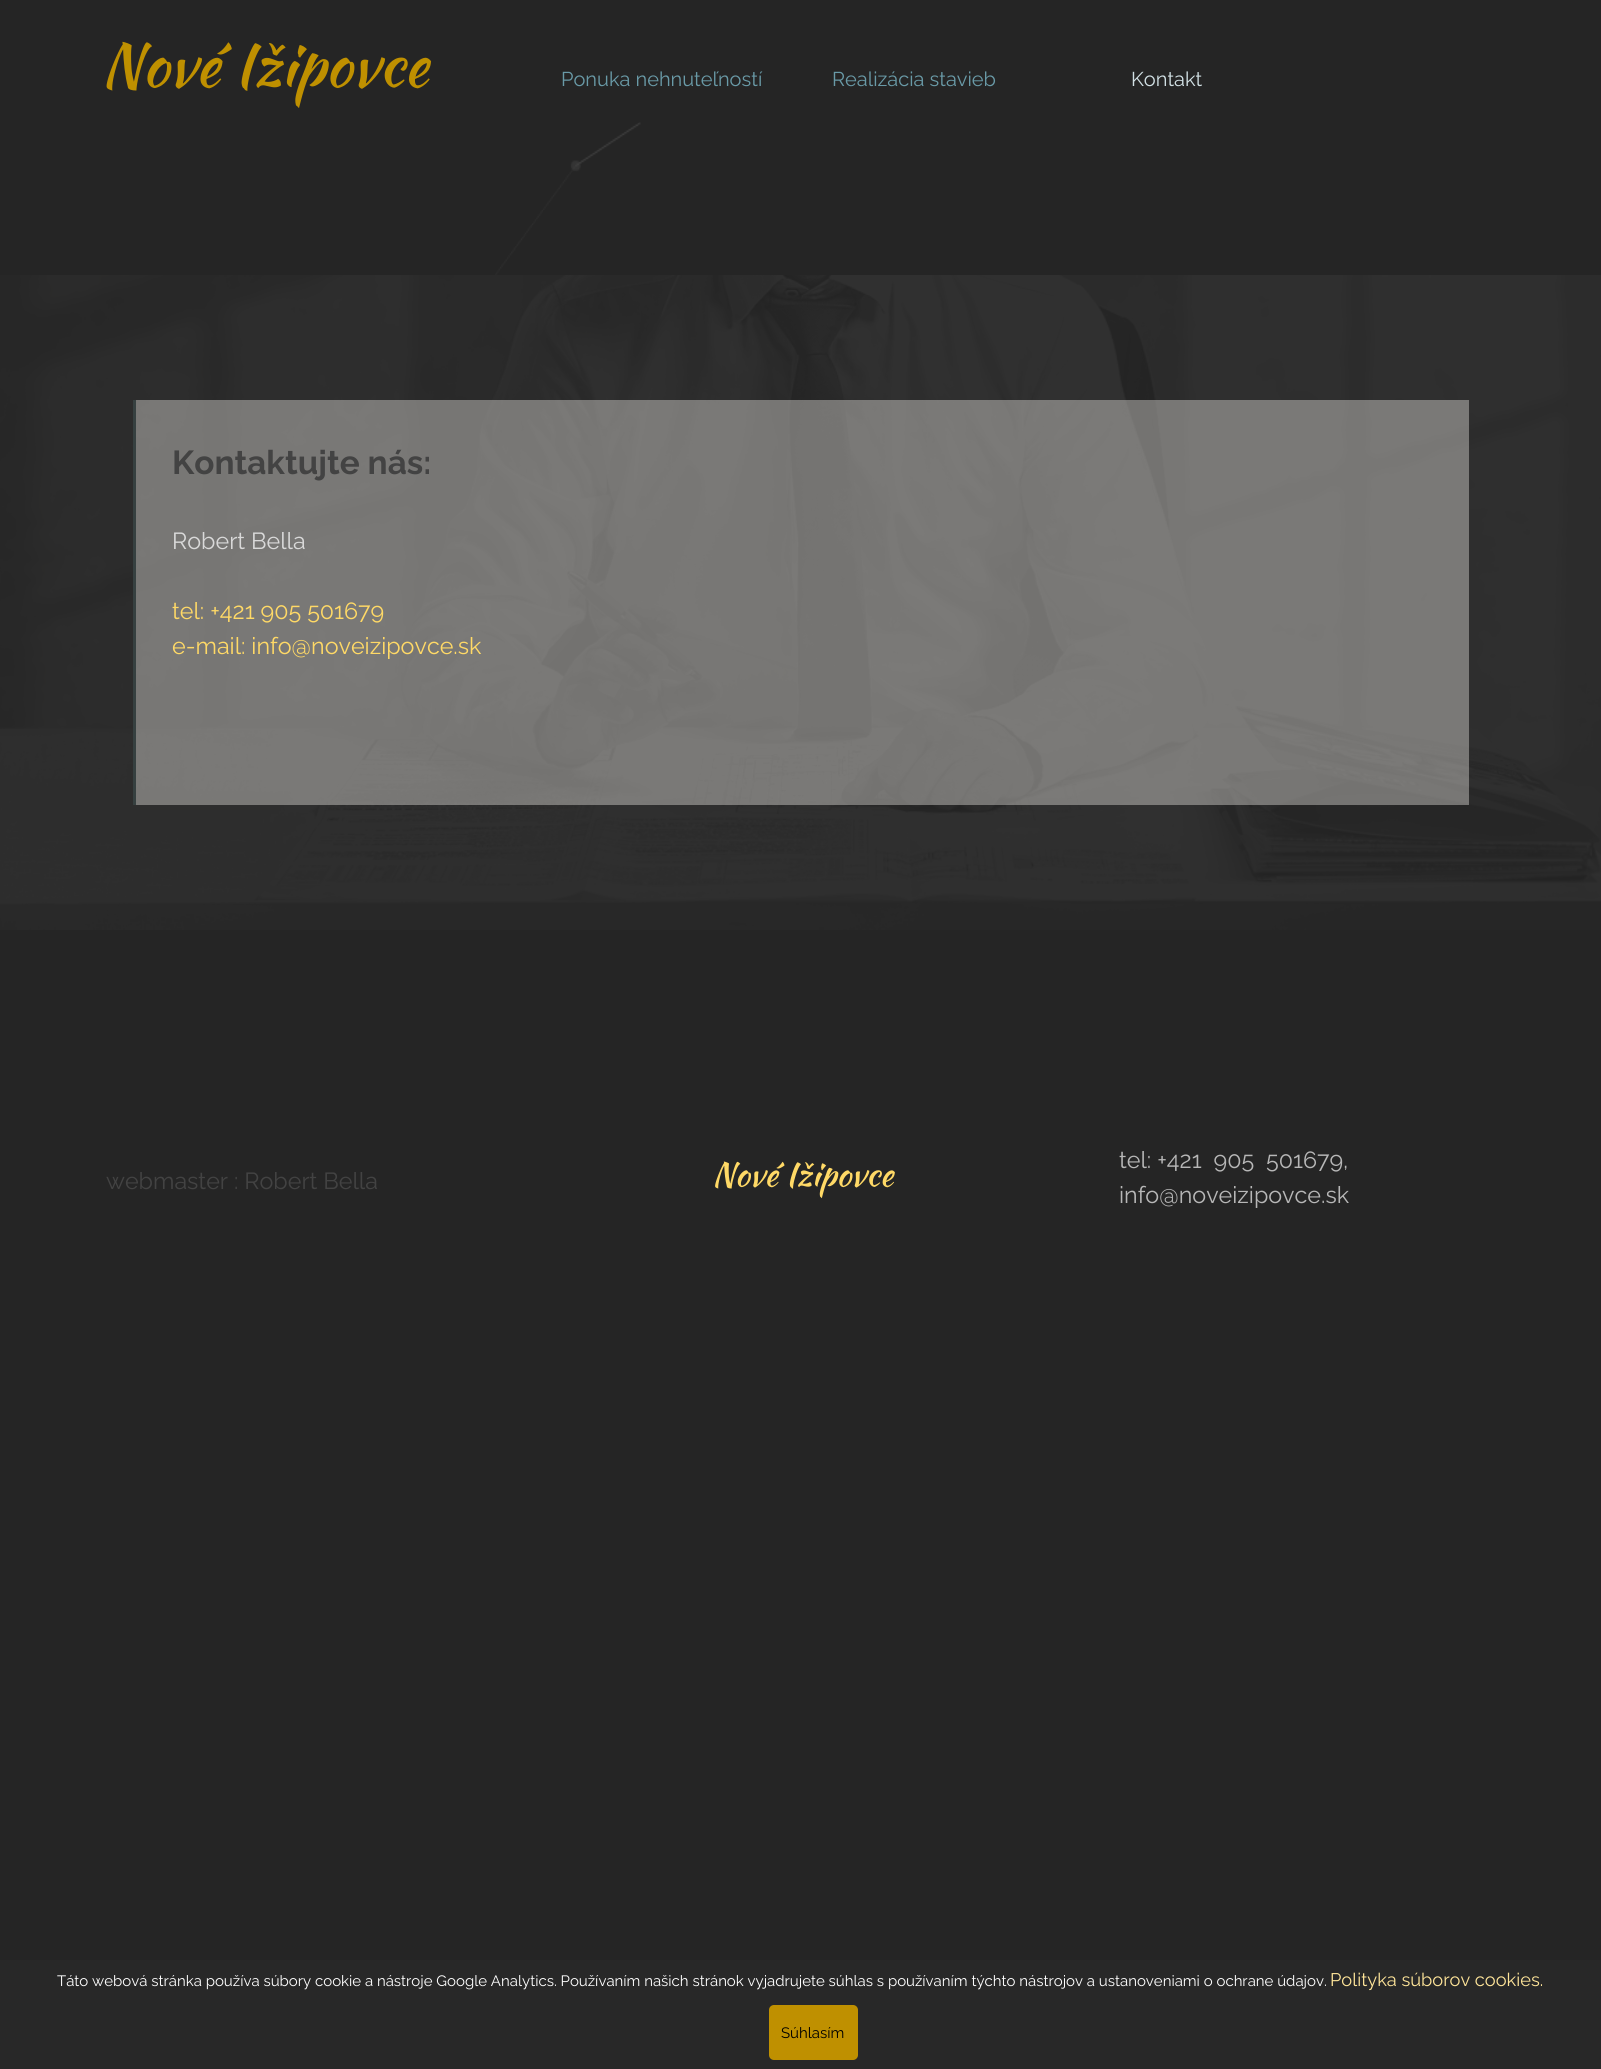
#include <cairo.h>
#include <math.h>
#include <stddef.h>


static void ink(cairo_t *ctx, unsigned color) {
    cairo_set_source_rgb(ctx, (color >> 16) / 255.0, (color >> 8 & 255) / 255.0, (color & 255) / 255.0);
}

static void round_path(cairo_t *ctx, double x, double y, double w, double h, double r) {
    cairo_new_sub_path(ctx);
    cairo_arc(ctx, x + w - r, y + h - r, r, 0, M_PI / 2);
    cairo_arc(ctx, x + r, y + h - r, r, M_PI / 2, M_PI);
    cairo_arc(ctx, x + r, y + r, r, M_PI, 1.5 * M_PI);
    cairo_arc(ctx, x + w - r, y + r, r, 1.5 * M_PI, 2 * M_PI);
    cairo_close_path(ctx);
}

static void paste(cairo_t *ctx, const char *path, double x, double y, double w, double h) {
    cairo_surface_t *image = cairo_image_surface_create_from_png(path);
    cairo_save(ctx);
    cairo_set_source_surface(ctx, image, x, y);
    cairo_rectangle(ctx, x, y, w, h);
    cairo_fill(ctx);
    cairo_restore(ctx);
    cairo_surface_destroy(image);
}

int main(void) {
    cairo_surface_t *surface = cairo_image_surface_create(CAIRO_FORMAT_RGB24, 1601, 2069);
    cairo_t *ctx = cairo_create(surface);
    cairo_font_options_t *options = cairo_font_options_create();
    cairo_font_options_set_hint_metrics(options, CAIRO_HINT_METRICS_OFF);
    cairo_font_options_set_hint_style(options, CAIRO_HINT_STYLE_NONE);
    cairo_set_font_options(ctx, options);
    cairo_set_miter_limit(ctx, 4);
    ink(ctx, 0x252525);
    cairo_paint(ctx);
    cairo_select_font_face(ctx, "Kaushan Script", CAIRO_FONT_SLANT_NORMAL, CAIRO_FONT_WEIGHT_NORMAL);
    cairo_set_font_size(ctx, 60);
    ink(ctx, 0xBF9000);
    cairo_move_to(ctx, 101, 86);
    cairo_show_text(ctx, "Nové Ižipovce");
    cairo_select_font_face(ctx, "Raleway", CAIRO_FONT_SLANT_NORMAL, CAIRO_FONT_WEIGHT_NORMAL);
    cairo_set_font_size(ctx, 20);
    ink(ctx, 0x699AA7);
    cairo_move_to(ctx, 561, 86);
    cairo_show_text(ctx, "Ponuka nehnuteľností");
    cairo_move_to(ctx, 832, 86);
    cairo_show_text(ctx, "Realizácia stavieb");
    ink(ctx, 0xD1E0E4);
    cairo_move_to(ctx, 1131, 86);
    cairo_show_text(ctx, "Kontakt");
    paste(ctx, "media/1.png", 495, 122, 146, 153);
    paste(ctx, "media/2.png", 0, 275, 1601, 655);
    ink(ctx, 0x364040);
    cairo_rectangle(ctx, 133, 400, 3, 405);
    cairo_fill(ctx);
    cairo_set_source_rgba(ctx, 0.925, 0.91, 0.898, 0.4);
    cairo_rectangle(ctx, 136, 400, 1333, 405);
    cairo_fill(ctx);
    cairo_select_font_face(ctx, "Raleway", CAIRO_FONT_SLANT_NORMAL, CAIRO_FONT_WEIGHT_BOLD);
    cairo_set_font_size(ctx, 33.25);
    ink(ctx, 0x434343);
    cairo_move_to(ctx, 172, 474);
    cairo_show_text(ctx, "Kontaktujte nás:");
    cairo_select_font_face(ctx, "Raleway", CAIRO_FONT_SLANT_NORMAL, CAIRO_FONT_WEIGHT_NORMAL);
    cairo_set_font_size(ctx, 23.3);
    ink(ctx, 0xD9D9D9);
    cairo_move_to(ctx, 172, 549);
    cairo_show_text(ctx, "Robert Bella");
    ink(ctx, 0xFFD966);
    cairo_move_to(ctx, 172, 619);
    cairo_show_text(ctx, "tel: +421 905 501679");
    cairo_move_to(ctx, 172, 654);
    cairo_show_text(ctx, "e-mail: info@noveizipovce.sk");
    ink(ctx, 0x434343);
    cairo_move_to(ctx, 106, 1189);
    cairo_show_text(ctx, "webmaster : Robert Bella");
    cairo_select_font_face(ctx, "Kaushan Script", CAIRO_FONT_SLANT_NORMAL, CAIRO_FONT_WEIGHT_NORMAL);
    cairo_set_font_size(ctx, 33.25);
    ink(ctx, 0xFFD966);
    cairo_move_to(ctx, 712, 1186);
    cairo_show_text(ctx, "Nové Ižipovce");
    cairo_select_font_face(ctx, "Raleway", CAIRO_FONT_SLANT_NORMAL, CAIRO_FONT_WEIGHT_NORMAL);
    cairo_set_font_size(ctx, 23.3);
    ink(ctx, 0xB7B7B7);
    cairo_move_to(ctx, 1119, 1168);
    cairo_show_text(ctx, "tel: +421  905  501679,");
    cairo_move_to(ctx, 1119, 1203);
    cairo_show_text(ctx, "info@noveizipovce.sk");
    ink(ctx, 0x282828);
    cairo_rectangle(ctx, 0, 1960, 1601, 109);
    cairo_fill(ctx);
    cairo_set_font_size(ctx, 15);
    ink(ctx, 0xFFFFFF);
    cairo_move_to(ctx, 57, 1986);
    cairo_show_text(ctx, "Táto webová stránka používa súbory cookie a nástroje Google Analytics. Používaním našich stránok vyjadrujete súhlas s používaním týchto nástrojov a ustanoveniami o ochrane údajov.");
    cairo_set_font_size(ctx, 18.25);
    ink(ctx, 0xFFE599);
    cairo_move_to(ctx, 1330, 1986);
    cairo_show_text(ctx, "Polityka súborov cookies.");
    ink(ctx, 0xBF9000);
    round_path(ctx, 769, 2005, 89, 55, 5);
    cairo_fill(ctx);
    cairo_set_font_size(ctx, 15);
    ink(ctx, 0x000000);
    cairo_move_to(ctx, 781, 2038);
    cairo_show_text(ctx, "Súhlasím");
    cairo_surface_write_to_png(surface, "image.png");
    cairo_font_options_destroy(options);
    cairo_destroy(ctx);
    cairo_surface_destroy(surface);
    return 0;
}
